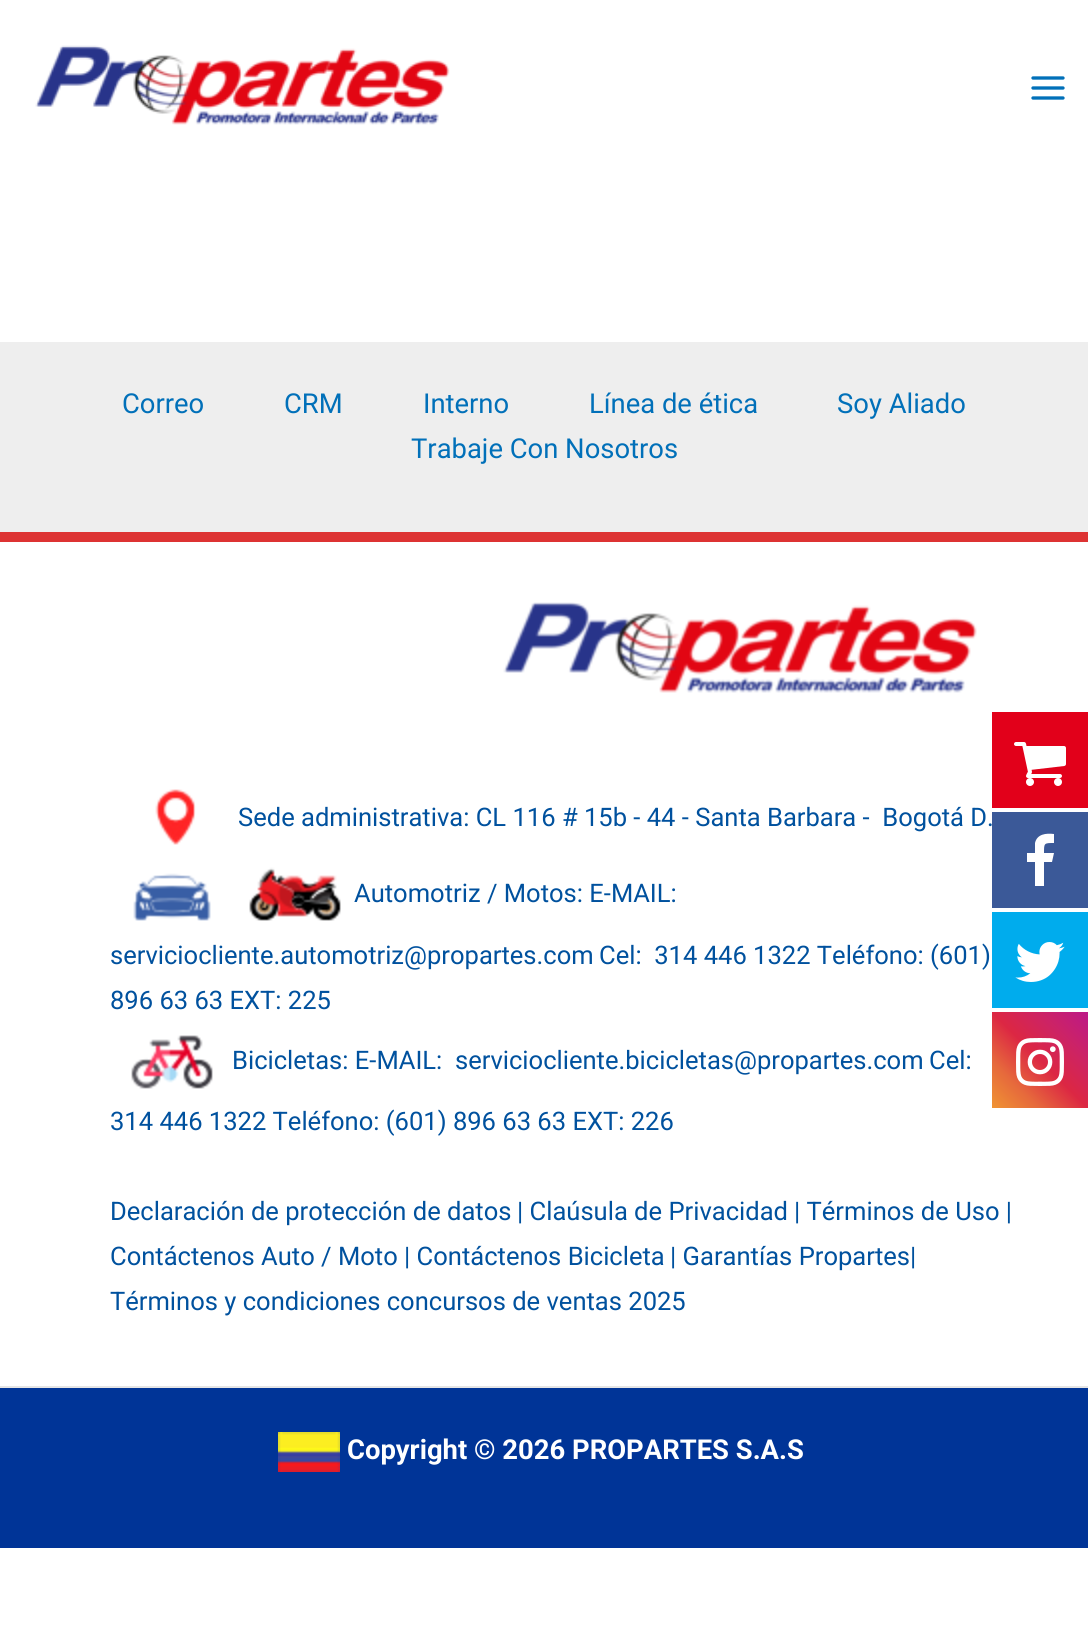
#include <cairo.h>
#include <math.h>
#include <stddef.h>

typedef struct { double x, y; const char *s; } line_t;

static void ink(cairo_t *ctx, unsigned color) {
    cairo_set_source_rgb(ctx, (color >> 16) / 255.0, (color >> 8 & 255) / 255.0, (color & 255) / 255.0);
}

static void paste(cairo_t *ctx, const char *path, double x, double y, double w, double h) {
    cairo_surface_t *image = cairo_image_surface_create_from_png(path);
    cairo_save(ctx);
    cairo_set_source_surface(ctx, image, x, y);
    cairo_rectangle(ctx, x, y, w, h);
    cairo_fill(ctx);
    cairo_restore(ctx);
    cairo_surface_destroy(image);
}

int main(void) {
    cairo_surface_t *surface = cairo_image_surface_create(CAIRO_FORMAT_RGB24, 1088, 1647);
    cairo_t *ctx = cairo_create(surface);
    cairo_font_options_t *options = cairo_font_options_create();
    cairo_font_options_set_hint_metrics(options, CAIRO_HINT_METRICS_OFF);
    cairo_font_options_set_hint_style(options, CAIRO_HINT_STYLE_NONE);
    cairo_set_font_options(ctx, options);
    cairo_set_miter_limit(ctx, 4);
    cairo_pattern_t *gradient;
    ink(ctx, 0xFFFFFF);
    cairo_paint(ctx);
    paste(ctx, "media/1.png", 35, 45, 415, 80);
    paste(ctx, "media/2.png", 1031, 76, 34, 24);
    ink(ctx, 0xEEEEEE);
    cairo_rectangle(ctx, 0, 342, 1088, 190);
    cairo_fill(ctx);
    cairo_select_font_face(ctx, "Roboto", CAIRO_FONT_SLANT_NORMAL, CAIRO_FONT_WEIGHT_NORMAL);
    cairo_set_font_size(ctx, 27.4);
    ink(ctx, 0x0170B9);
    {
        static const line_t items[] = {
            {122, 413, "Correo"},
            {284, 413, "CRM"},
            {423, 413, "Interno"},
            {589, 413, "Línea de ética"},
            {837, 413, "Soy Aliado"},
            {411, 458, "Trabaje Con Nosotros"},
        };
        for (size_t i = 0; i < sizeof items / sizeof *items; i++) {
            cairo_move_to(ctx, items[i].x, items[i].y);
            cairo_show_text(ctx, items[i].s);
        }
    }
    ink(ctx, 0xDD3333);
    cairo_rectangle(ctx, 0, 532, 1088, 10);
    cairo_fill(ctx);
    paste(ctx, "media/3.png", 503, 602, 474, 91);
    paste(ctx, "media/4.png", 155, 789, 41, 56);
    cairo_set_font_size(ctx, 25.55);
    ink(ctx, 0x00519E);
    cairo_move_to(ctx, 238, 826);
    cairo_show_text(ctx, "Sede administrativa: CL 116 # 15b - 44 - Santa Barbara -  Bogotá D.");
    paste(ctx, "media/5.png", 133, 873, 78, 48);
    paste(ctx, "media/6.png", 249, 867, 92, 54);
    {
        static const line_t items[] = {
            {354, 902, "Automotriz / Motos: E-MAIL:"},
            {110, 964, "serviciocliente.automotriz@propartes.com"},
            {599, 964, "Cel:  314 446 1322 Teléfono: (601)"},
            {110, 1009, "896 63 63 EXT: 225"},
        };
        for (size_t i = 0; i < sizeof items / sizeof *items; i++) {
            cairo_move_to(ctx, items[i].x, items[i].y);
            cairo_show_text(ctx, items[i].s);
        }
    }
    paste(ctx, "media/7.png", 131, 1035, 82, 54);
    {
        static const line_t items[] = {
            {232, 1069, "Bicicletas: E-MAIL:"},
            {455, 1069, "serviciocliente.bicicletas@propartes.com"},
            {929, 1069, "Cel:"},
            {110, 1130, "314 446 1322 Teléfono: (601) 896 63 63 EXT: 226"},
            {110, 1220, "Declaración de protección de datos"},
            {517, 1220, "| Claúsula de Privacidad"},
            {794, 1220, "| Términos de Uso |"},
            {110, 1265, "Contáctenos Auto / Moto"},
            {404, 1265, "| Contáctenos Bicicleta"},
            {670, 1265, "| Garantías Propartes|"},
            {110, 1310, "Términos y condiciones concursos de ventas 2025"},
        };
        for (size_t i = 0; i < sizeof items / sizeof *items; i++) {
            cairo_move_to(ctx, items[i].x, items[i].y);
            cairo_show_text(ctx, items[i].s);
        }
    }
    ink(ctx, 0x003497);
    cairo_rectangle(ctx, 0, 1388, 1088, 160);
    cairo_fill(ctx);
    ink(ctx, 0xE5E5E5);
    cairo_rectangle(ctx, 0, 1386, 1088, 2);
    cairo_fill(ctx);
    paste(ctx, "media/8.png", 278, 1432, 62, 40);
    cairo_select_font_face(ctx, "Roboto", CAIRO_FONT_SLANT_NORMAL, CAIRO_FONT_WEIGHT_BOLD);
    cairo_set_font_size(ctx, 27.4);
    ink(ctx, 0xFFFFFF);
    cairo_move_to(ctx, 347, 1459);
    cairo_show_text(ctx, "Copyright © 2026 PROPARTES S.A.S");
    ink(ctx, 0xE2001A);
    cairo_rectangle(ctx, 992, 712, 96, 96);
    cairo_fill(ctx);
    paste(ctx, "media/9.png", 1014, 742, 52, 44);
    ink(ctx, 0x3B5998);
    cairo_rectangle(ctx, 992, 812, 96, 96);
    cairo_fill(ctx);
    ink(ctx, 0xFFFFFF);
    cairo_new_path(ctx);
    cairo_move_to(ctx, 1054, 834);
    cairo_line_to(ctx, 1054, 843);
    cairo_curve_to(ctx, 1044, 843, 1044, 843, 1044, 853);
    cairo_line_to(ctx, 1054, 853);
    cairo_line_to(ctx, 1052, 862);
    cairo_line_to(ctx, 1044, 862);
    cairo_line_to(ctx, 1044, 886);
    cairo_line_to(ctx, 1035, 886);
    cairo_line_to(ctx, 1035, 862);
    cairo_line_to(ctx, 1027, 862);
    cairo_line_to(ctx, 1027, 853);
    cairo_line_to(ctx, 1035, 853);
    cairo_line_to(ctx, 1035, 843);
    cairo_curve_to(ctx, 1037, 834, 1046, 833, 1054, 834);
    cairo_close_path(ctx);
    cairo_fill(ctx);
    ink(ctx, 0x00ACED);
    cairo_rectangle(ctx, 992, 912, 96, 96);
    cairo_fill(ctx);
    paste(ctx, "media/10.png", 1015, 942, 50, 40);
    gradient = cairo_pattern_create_linear(992, 1108, 1088, 1012);
    cairo_pattern_add_color_stop_rgba(gradient, 0, 0.941, 0.58, 0.2, 1);
    cairo_pattern_add_color_stop_rgba(gradient, 0.25, 0.902, 0.408, 0.235, 1);
    cairo_pattern_add_color_stop_rgba(gradient, 0.5, 0.863, 0.153, 0.263, 1);
    cairo_pattern_add_color_stop_rgba(gradient, 0.75, 0.8, 0.137, 0.4, 1);
    cairo_pattern_add_color_stop_rgba(gradient, 1, 0.737, 0.094, 0.533, 1);
    cairo_set_source(ctx, gradient);
    cairo_pattern_destroy(gradient);
    cairo_rectangle(ctx, 992, 1012, 96, 96);
    cairo_fill(ctx);
    paste(ctx, "media/11.png", 1016, 1038, 48, 48);
    cairo_surface_write_to_png(surface, "image.png");
    cairo_font_options_destroy(options);
    cairo_destroy(ctx);
    cairo_surface_destroy(surface);
    return 0;
}
